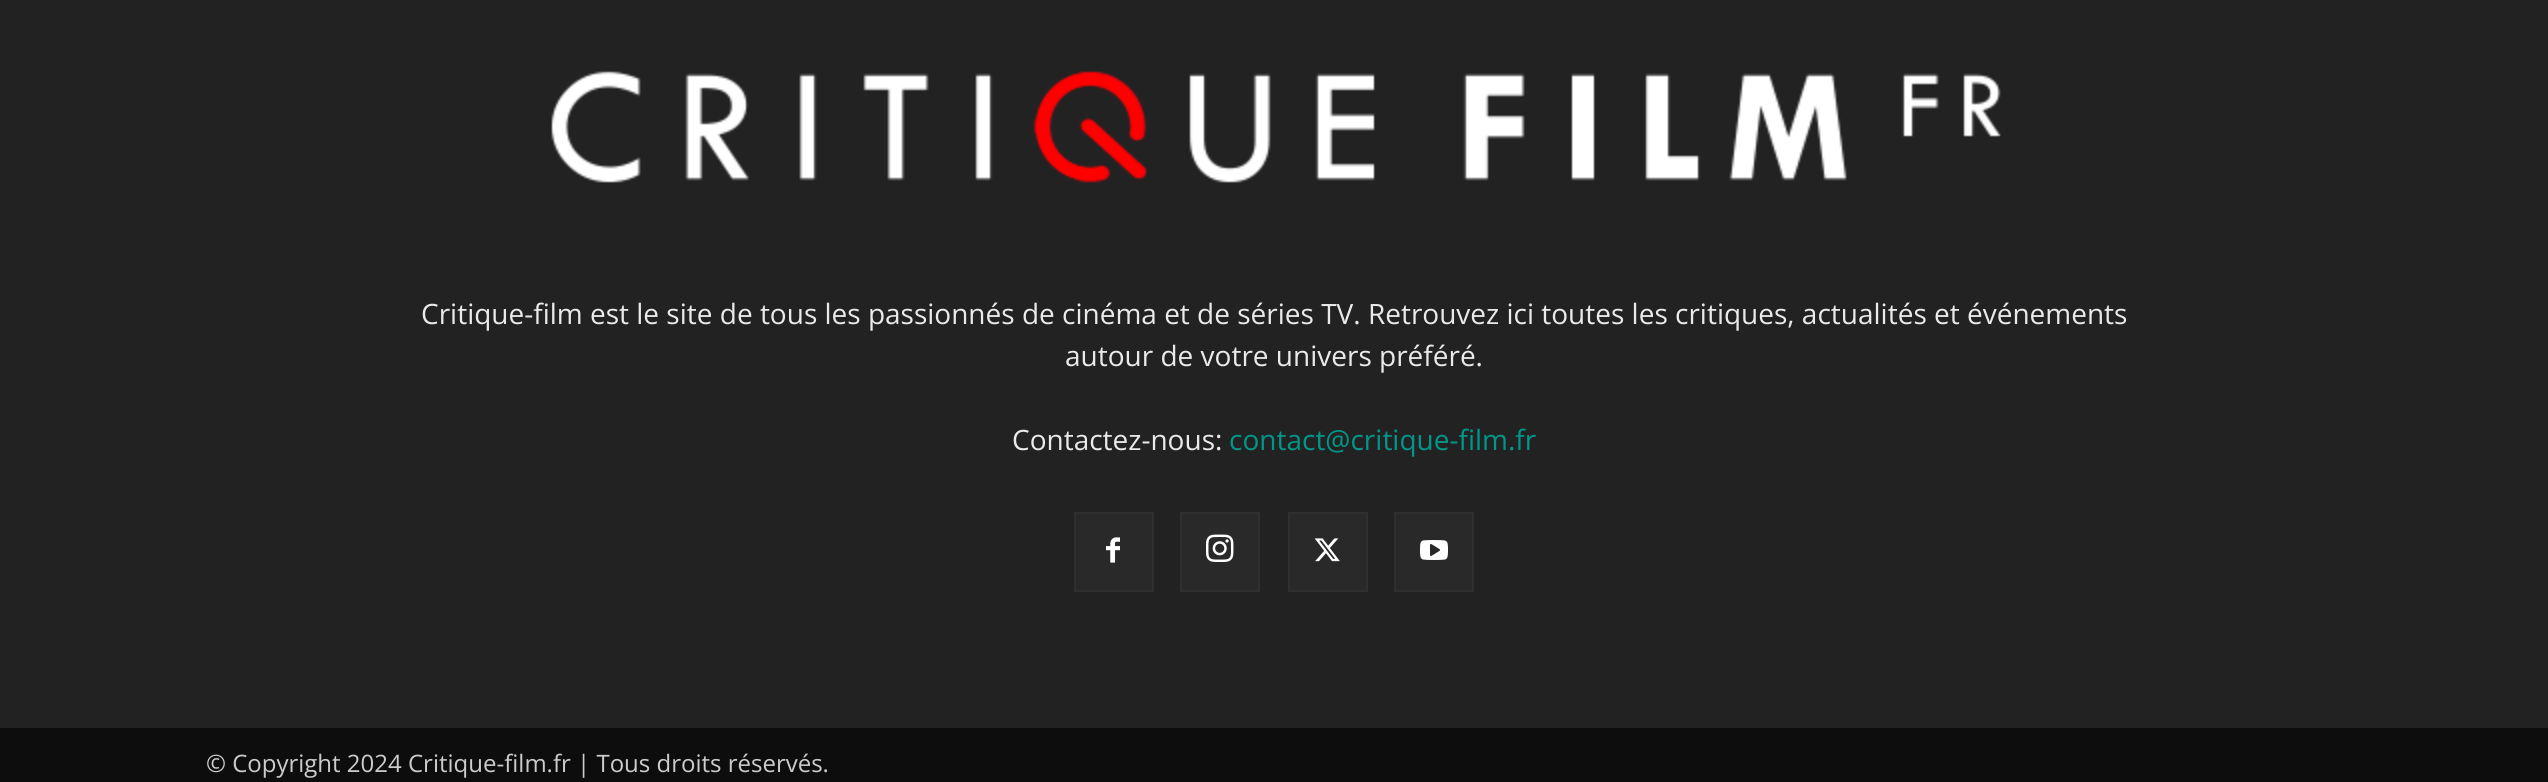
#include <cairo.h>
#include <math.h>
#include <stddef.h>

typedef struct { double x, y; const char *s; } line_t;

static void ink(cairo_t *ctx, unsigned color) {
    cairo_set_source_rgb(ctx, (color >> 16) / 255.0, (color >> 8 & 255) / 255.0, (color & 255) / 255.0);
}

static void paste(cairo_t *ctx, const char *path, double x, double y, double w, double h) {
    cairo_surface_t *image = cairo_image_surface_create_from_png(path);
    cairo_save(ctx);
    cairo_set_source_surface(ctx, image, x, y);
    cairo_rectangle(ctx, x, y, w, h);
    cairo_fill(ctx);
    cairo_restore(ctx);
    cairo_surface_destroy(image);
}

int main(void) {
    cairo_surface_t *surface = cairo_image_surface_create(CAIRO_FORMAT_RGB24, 2548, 782);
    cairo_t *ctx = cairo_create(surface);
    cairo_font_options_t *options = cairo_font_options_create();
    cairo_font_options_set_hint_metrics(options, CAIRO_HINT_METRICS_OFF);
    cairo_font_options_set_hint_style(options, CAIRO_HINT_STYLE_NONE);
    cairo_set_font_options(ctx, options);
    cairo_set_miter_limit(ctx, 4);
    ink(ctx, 0x0D0D0D);
    cairo_paint(ctx);
    ink(ctx, 0x222222);
    cairo_rectangle(ctx, 0, 0, 2548, 728);
    cairo_fill(ctx);
    paste(ctx, "media/1.png", 551, 71, 1450, 112);
    cairo_select_font_face(ctx, "Open Sans", CAIRO_FONT_SLANT_NORMAL, CAIRO_FONT_WEIGHT_NORMAL);
    cairo_set_font_size(ctx, 28);
    ink(ctx, 0xEAEAEA);
    {
        static const line_t items[] = {
            {421, 324, "Critique-film est le site de tous les passionnés de cinéma et de séries TV. Retrouvez ici toutes les critiques, actualités et événements"},
            {1065, 366, "autour de votre univers préféré."},
            {1012, 450, "Contactez-nous:"},
        };
        for (size_t i = 0; i < sizeof items / sizeof *items; i++) {
            cairo_move_to(ctx, items[i].x, items[i].y);
            cairo_show_text(ctx, items[i].s);
        }
    }
    ink(ctx, 0x009688);
    cairo_move_to(ctx, 1229, 450);
    cairo_show_text(ctx, "contact@critique-film.fr");
    ink(ctx, 0x292929);
    cairo_rectangle(ctx, 1076, 514, 76, 76);
    cairo_fill(ctx);
    paste(ctx, "media/2.png", 1106, 537, 14, 26);
    cairo_rectangle(ctx, 1075, 513, 78, 78);
    ink(ctx, 0x2F2F2F);
    cairo_stroke(ctx);
    ink(ctx, 0x292929);
    cairo_rectangle(ctx, 1182, 514, 76, 76);
    cairo_fill(ctx);
    paste(ctx, "media/3.png", 1206, 534, 28, 28);
    cairo_rectangle(ctx, 1181, 513, 78, 78);
    ink(ctx, 0x2F2F2F);
    cairo_stroke(ctx);
    ink(ctx, 0x292929);
    cairo_rectangle(ctx, 1290, 514, 76, 76);
    cairo_fill(ctx);
    paste(ctx, "media/4.png", 1314, 538, 26, 24);
    cairo_rectangle(ctx, 1289, 513, 78, 78);
    ink(ctx, 0x2F2F2F);
    cairo_stroke(ctx);
    ink(ctx, 0x292929);
    cairo_rectangle(ctx, 1396, 514, 76, 76);
    cairo_fill(ctx);
    paste(ctx, "media/5.png", 1420, 540, 28, 20);
    cairo_rectangle(ctx, 1395, 513, 78, 78);
    ink(ctx, 0x2F2F2F);
    cairo_stroke(ctx);
    cairo_set_font_size(ctx, 24);
    ink(ctx, 0xCCCCCC);
    cairo_move_to(ctx, 206, 772);
    cairo_show_text(ctx, "© Copyright 2024 Critique-film.fr | Tous droits réservés.");
    cairo_surface_write_to_png(surface, "image.png");
    cairo_font_options_destroy(options);
    cairo_destroy(ctx);
    cairo_surface_destroy(surface);
    return 0;
}
